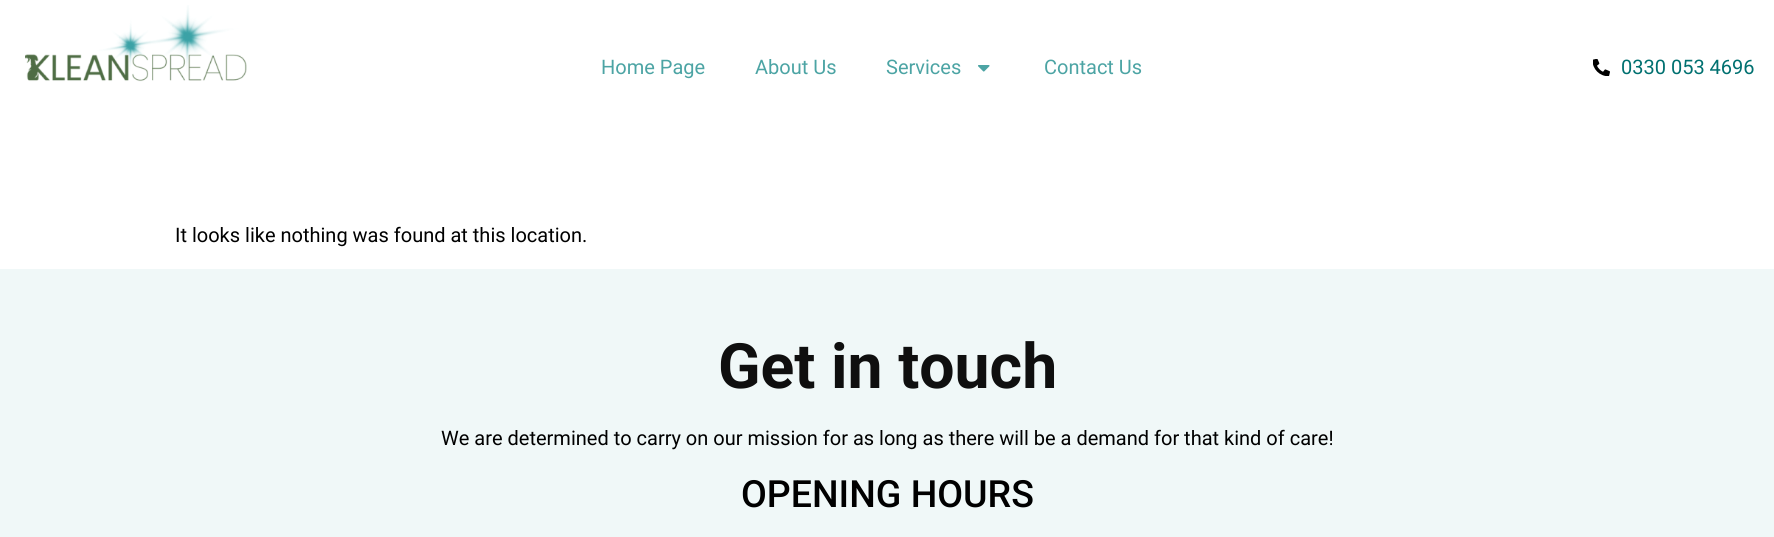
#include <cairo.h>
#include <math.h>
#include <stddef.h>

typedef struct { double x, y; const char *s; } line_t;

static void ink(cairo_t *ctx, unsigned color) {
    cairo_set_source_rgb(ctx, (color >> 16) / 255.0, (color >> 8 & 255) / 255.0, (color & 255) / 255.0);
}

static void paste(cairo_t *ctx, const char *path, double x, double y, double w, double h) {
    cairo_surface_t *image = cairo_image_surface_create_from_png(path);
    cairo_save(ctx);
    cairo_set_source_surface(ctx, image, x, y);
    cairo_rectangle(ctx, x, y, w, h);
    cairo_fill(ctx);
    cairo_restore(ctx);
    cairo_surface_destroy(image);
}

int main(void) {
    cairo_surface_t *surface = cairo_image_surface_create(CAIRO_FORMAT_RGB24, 1774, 537);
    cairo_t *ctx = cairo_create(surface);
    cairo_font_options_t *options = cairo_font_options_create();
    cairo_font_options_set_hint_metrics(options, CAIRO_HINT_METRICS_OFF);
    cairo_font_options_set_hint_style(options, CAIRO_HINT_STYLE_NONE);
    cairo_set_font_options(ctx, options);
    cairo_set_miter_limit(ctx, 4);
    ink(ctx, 0xFFFFFF);
    cairo_paint(ctx);
    paste(ctx, "media/1.png", 25, 5, 222, 77);
    cairo_select_font_face(ctx, "Roboto", CAIRO_FONT_SLANT_NORMAL, CAIRO_FONT_WEIGHT_NORMAL);
    cairo_set_font_size(ctx, 20);
    ink(ctx, 0x4CA4A4);
    {
        static const line_t items[] = {
            {601, 74, "Home Page"},
            {755, 74, "About Us"},
            {886, 74, "Services"},
        };
        for (size_t i = 0; i < sizeof items / sizeof *items; i++) {
            cairo_move_to(ctx, items[i].x, items[i].y);
            cairo_show_text(ctx, items[i].s);
        }
    }
    paste(ctx, "media/2.png", 978, 65, 12, 7);
    cairo_move_to(ctx, 1044, 74);
    cairo_show_text(ctx, "Contact Us");
    paste(ctx, "media/3.png", 1593, 59, 17, 17);
    ink(ctx, 0x007070);
    cairo_move_to(ctx, 1621, 74);
    cairo_show_text(ctx, "0330 053 4696");
    ink(ctx, 0x000000);
    cairo_move_to(ctx, 175, 242);
    cairo_show_text(ctx, "It looks like nothing was found at this location.");
    ink(ctx, 0xF0F8F8);
    cairo_rectangle(ctx, 0, 269, 1774, 268);
    cairo_fill(ctx);
    cairo_select_font_face(ctx, "Roboto", CAIRO_FONT_SLANT_NORMAL, CAIRO_FONT_WEIGHT_BOLD);
    cairo_set_font_size(ctx, 62.5);
    ink(ctx, 0x0F0F0F);
    cairo_move_to(ctx, 718, 388);
    cairo_show_text(ctx, "Get in touch");
    cairo_select_font_face(ctx, "Roboto", CAIRO_FONT_SLANT_NORMAL, CAIRO_FONT_WEIGHT_NORMAL);
    cairo_set_font_size(ctx, 20);
    ink(ctx, 0x000000);
    cairo_move_to(ctx, 441, 445);
    cairo_show_text(ctx, "We are determined to carry on our mission for as long as there will be a demand for that kind of care!");
    cairo_select_font_face(ctx, "Roboto Medium", CAIRO_FONT_SLANT_NORMAL, CAIRO_FONT_WEIGHT_NORMAL);
    cairo_set_font_size(ctx, 37.5);
    cairo_move_to(ctx, 741, 507);
    cairo_show_text(ctx, "OPENING HOURS");
    cairo_surface_write_to_png(surface, "image.png");
    cairo_font_options_destroy(options);
    cairo_destroy(ctx);
    cairo_surface_destroy(surface);
    return 0;
}
